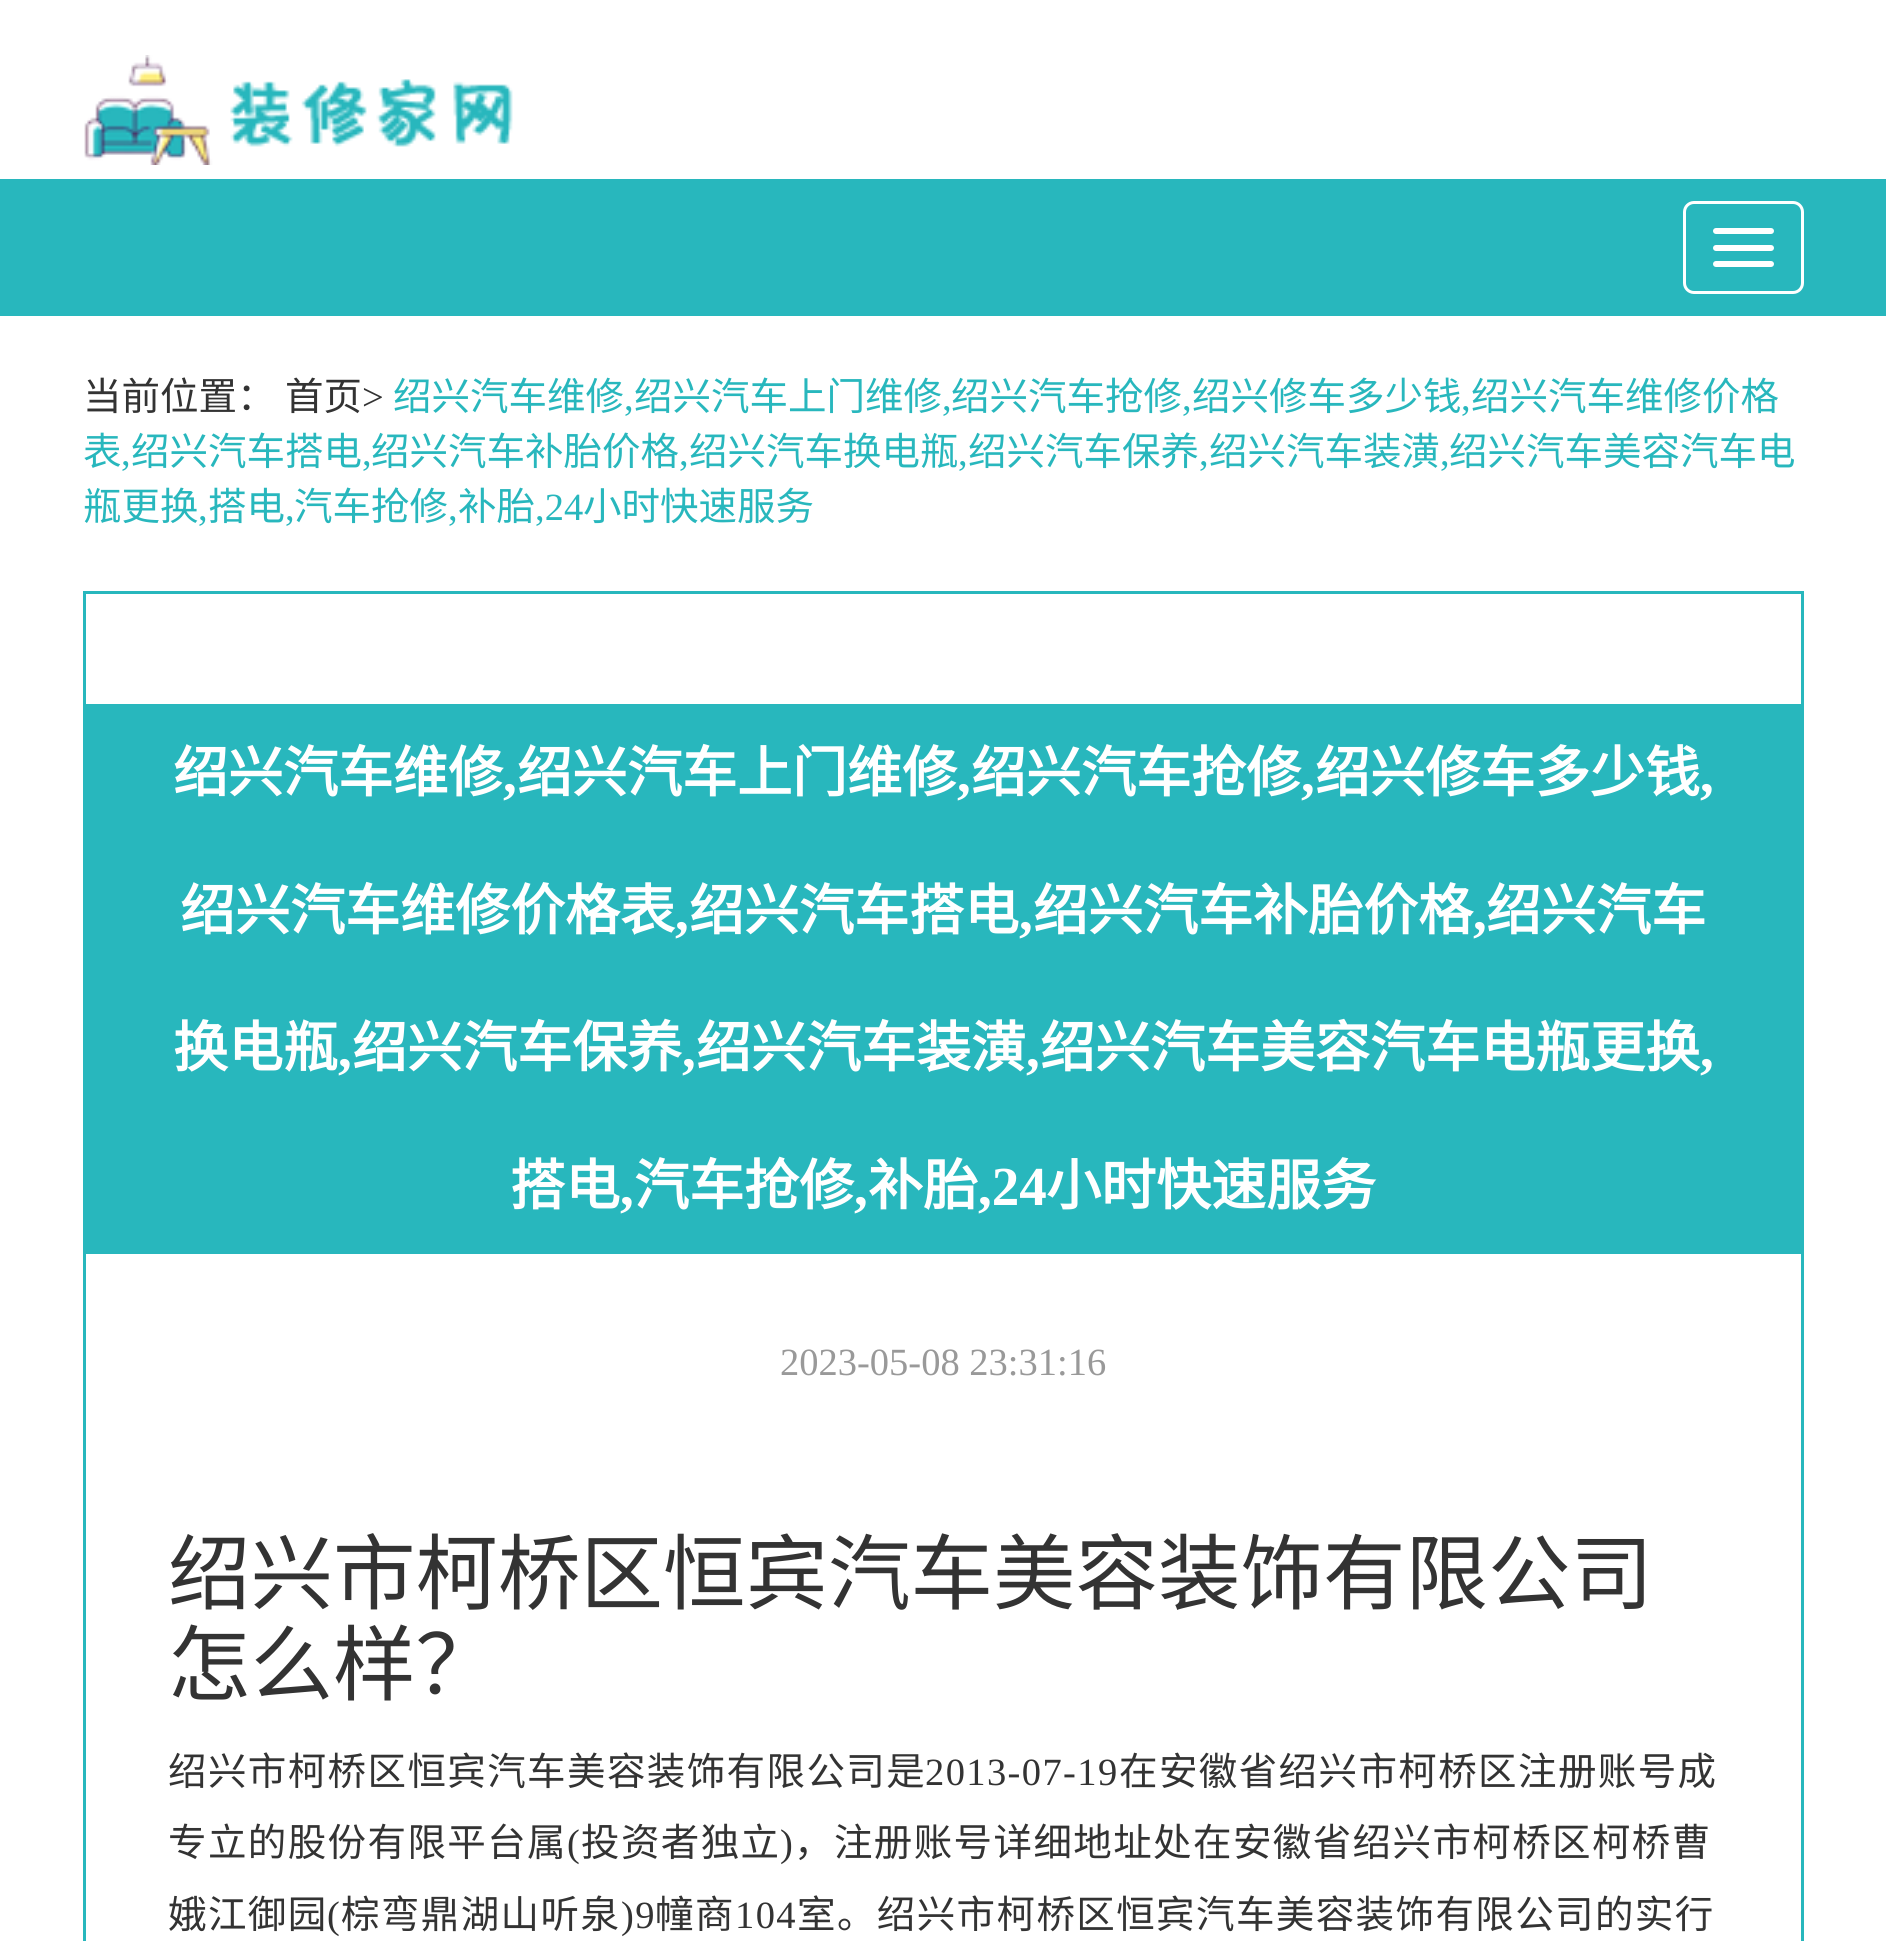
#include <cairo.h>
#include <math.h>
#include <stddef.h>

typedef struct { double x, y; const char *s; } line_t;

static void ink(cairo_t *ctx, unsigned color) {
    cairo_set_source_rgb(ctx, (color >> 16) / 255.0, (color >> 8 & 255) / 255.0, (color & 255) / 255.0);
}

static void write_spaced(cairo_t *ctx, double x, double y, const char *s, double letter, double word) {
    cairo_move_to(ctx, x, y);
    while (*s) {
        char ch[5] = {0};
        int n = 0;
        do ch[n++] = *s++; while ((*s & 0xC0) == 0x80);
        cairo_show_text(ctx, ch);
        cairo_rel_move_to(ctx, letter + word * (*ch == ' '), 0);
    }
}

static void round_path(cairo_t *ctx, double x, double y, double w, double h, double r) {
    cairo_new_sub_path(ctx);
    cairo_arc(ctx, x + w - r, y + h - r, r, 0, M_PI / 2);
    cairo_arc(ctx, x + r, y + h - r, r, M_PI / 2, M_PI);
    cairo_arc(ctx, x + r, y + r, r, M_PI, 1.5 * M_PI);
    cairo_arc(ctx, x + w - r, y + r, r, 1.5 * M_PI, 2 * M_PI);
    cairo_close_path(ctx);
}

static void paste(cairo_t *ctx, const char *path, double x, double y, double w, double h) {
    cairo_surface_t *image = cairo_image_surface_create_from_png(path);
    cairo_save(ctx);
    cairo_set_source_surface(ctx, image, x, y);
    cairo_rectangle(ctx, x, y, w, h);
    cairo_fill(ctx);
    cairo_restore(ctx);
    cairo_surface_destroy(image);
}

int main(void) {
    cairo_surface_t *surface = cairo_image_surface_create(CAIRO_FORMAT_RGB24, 1886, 1941);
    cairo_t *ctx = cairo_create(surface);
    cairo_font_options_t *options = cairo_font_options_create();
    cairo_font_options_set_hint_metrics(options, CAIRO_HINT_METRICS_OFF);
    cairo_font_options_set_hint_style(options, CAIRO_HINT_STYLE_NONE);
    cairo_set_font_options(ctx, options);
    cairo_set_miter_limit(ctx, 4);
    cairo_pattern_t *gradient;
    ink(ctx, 0xFFFFFF);
    cairo_paint(ctx);
    paste(ctx, "media/1.png", 84, 55, 429, 110);
    gradient = cairo_pattern_create_linear(1883, 346, 3.2, 149);
    cairo_pattern_add_color_stop_rgba(gradient, 0, 0.204, 0.757, 0.78, 1);
    cairo_pattern_add_color_stop_rgba(gradient, 0, 0.157, 0.718, 0.741, 1);
    cairo_pattern_add_color_stop_rgba(gradient, 1, 0.157, 0.718, 0.741, 1);
    cairo_set_source(ctx, gradient);
    cairo_pattern_destroy(gradient);
    cairo_rectangle(ctx, 0, 179, 1886, 137);
    cairo_fill(ctx);
    round_path(ctx, 1684.5, 202.5, 118, 90, 9.5);
    ink(ctx, 0xFFFFFF);
    cairo_set_line_width(ctx, 3);
    cairo_stroke(ctx);
    round_path(ctx, 1713, 228, 61, 6, 3);
    cairo_fill(ctx);
    round_path(ctx, 1713, 245, 61, 6, 3);
    cairo_fill(ctx);
    round_path(ctx, 1713, 261, 61, 6, 3);
    cairo_fill(ctx);
    cairo_select_font_face(ctx, "Noto Sans CJK SC", CAIRO_FONT_SLANT_NORMAL, CAIRO_FONT_WEIGHT_NORMAL);
    cairo_set_font_size(ctx, 38.5);
    ink(ctx, 0x333333);
    cairo_move_to(ctx, 83, 410);
    cairo_show_text(ctx, "当前位置：");
    cairo_move_to(ctx, 285, 410);
    cairo_show_text(ctx, "首页");
    cairo_select_font_face(ctx, "Liberation Serif", CAIRO_FONT_SLANT_NORMAL, CAIRO_FONT_WEIGHT_NORMAL);
    cairo_move_to(ctx, 362, 410);
    cairo_show_text(ctx, ">");
    cairo_select_font_face(ctx, "Noto Sans CJK SC", CAIRO_FONT_SLANT_NORMAL, CAIRO_FONT_WEIGHT_NORMAL);
    ink(ctx, 0x28B7BD);
    {
        static const line_t items[] = {
            {393, 410, "绍兴汽车维修"},
            {634, 410, "绍兴汽车上门维修"},
            {951, 410, "绍兴汽车抢修"},
            {1192, 410, "绍兴修车多少钱"},
            {1471, 410, "绍兴汽车维修价格"},
        };
        for (size_t i = 0; i < sizeof items / sizeof *items; i++) {
            cairo_move_to(ctx, items[i].x, items[i].y);
            cairo_show_text(ctx, items[i].s);
        }
    }
    cairo_select_font_face(ctx, "Liberation Serif", CAIRO_FONT_SLANT_NORMAL, CAIRO_FONT_WEIGHT_NORMAL);
    {
        static const line_t items[] = {
            {624, 410, ","},
            {942, 410, ","},
            {1182, 410, ","},
            {1461, 410, ","},
        };
        for (size_t i = 0; i < sizeof items / sizeof *items; i++) {
            cairo_move_to(ctx, items[i].x, items[i].y);
            cairo_show_text(ctx, items[i].s);
        }
    }
    cairo_select_font_face(ctx, "Noto Sans CJK SC", CAIRO_FONT_SLANT_NORMAL, CAIRO_FONT_WEIGHT_NORMAL);
    cairo_move_to(ctx, 83, 465);
    cairo_show_text(ctx, "表");
    cairo_select_font_face(ctx, "Liberation Serif", CAIRO_FONT_SLANT_NORMAL, CAIRO_FONT_WEIGHT_NORMAL);
    cairo_move_to(ctx, 121, 465);
    cairo_show_text(ctx, ",");
    cairo_select_font_face(ctx, "Noto Sans CJK SC", CAIRO_FONT_SLANT_NORMAL, CAIRO_FONT_WEIGHT_NORMAL);
    cairo_move_to(ctx, 131, 465);
    cairo_show_text(ctx, "绍兴汽车搭电");
    cairo_select_font_face(ctx, "Liberation Serif", CAIRO_FONT_SLANT_NORMAL, CAIRO_FONT_WEIGHT_NORMAL);
    cairo_move_to(ctx, 362, 465);
    cairo_show_text(ctx, ",");
    cairo_select_font_face(ctx, "Noto Sans CJK SC", CAIRO_FONT_SLANT_NORMAL, CAIRO_FONT_WEIGHT_NORMAL);
    cairo_move_to(ctx, 371, 465);
    cairo_show_text(ctx, "绍兴汽车补胎价格");
    cairo_select_font_face(ctx, "Liberation Serif", CAIRO_FONT_SLANT_NORMAL, CAIRO_FONT_WEIGHT_NORMAL);
    cairo_move_to(ctx, 679, 465);
    cairo_show_text(ctx, ",");
    cairo_select_font_face(ctx, "Noto Sans CJK SC", CAIRO_FONT_SLANT_NORMAL, CAIRO_FONT_WEIGHT_NORMAL);
    cairo_move_to(ctx, 689, 465);
    cairo_show_text(ctx, "绍兴汽车换电瓶");
    cairo_select_font_face(ctx, "Liberation Serif", CAIRO_FONT_SLANT_NORMAL, CAIRO_FONT_WEIGHT_NORMAL);
    cairo_move_to(ctx, 958, 465);
    cairo_show_text(ctx, ",");
    cairo_select_font_face(ctx, "Noto Sans CJK SC", CAIRO_FONT_SLANT_NORMAL, CAIRO_FONT_WEIGHT_NORMAL);
    cairo_move_to(ctx, 968, 465);
    cairo_show_text(ctx, "绍兴汽车保养");
    cairo_select_font_face(ctx, "Liberation Serif", CAIRO_FONT_SLANT_NORMAL, CAIRO_FONT_WEIGHT_NORMAL);
    cairo_move_to(ctx, 1199, 465);
    cairo_show_text(ctx, ",");
    cairo_select_font_face(ctx, "Noto Sans CJK SC", CAIRO_FONT_SLANT_NORMAL, CAIRO_FONT_WEIGHT_NORMAL);
    cairo_move_to(ctx, 1209, 465);
    cairo_show_text(ctx, "绍兴汽车装潢");
    cairo_select_font_face(ctx, "Liberation Serif", CAIRO_FONT_SLANT_NORMAL, CAIRO_FONT_WEIGHT_NORMAL);
    cairo_move_to(ctx, 1440, 465);
    cairo_show_text(ctx, ",");
    cairo_select_font_face(ctx, "Noto Sans CJK SC", CAIRO_FONT_SLANT_NORMAL, CAIRO_FONT_WEIGHT_NORMAL);
    cairo_move_to(ctx, 1449, 465);
    cairo_show_text(ctx, "绍兴汽车美容汽车电");
    cairo_move_to(ctx, 83, 520);
    cairo_show_text(ctx, "瓶更换");
    cairo_select_font_face(ctx, "Liberation Serif", CAIRO_FONT_SLANT_NORMAL, CAIRO_FONT_WEIGHT_NORMAL);
    cairo_move_to(ctx, 198, 520);
    cairo_show_text(ctx, ",");
    cairo_select_font_face(ctx, "Noto Sans CJK SC", CAIRO_FONT_SLANT_NORMAL, CAIRO_FONT_WEIGHT_NORMAL);
    cairo_move_to(ctx, 208, 520);
    cairo_show_text(ctx, "搭电");
    cairo_select_font_face(ctx, "Liberation Serif", CAIRO_FONT_SLANT_NORMAL, CAIRO_FONT_WEIGHT_NORMAL);
    cairo_move_to(ctx, 285, 520);
    cairo_show_text(ctx, ",");
    cairo_select_font_face(ctx, "Noto Sans CJK SC", CAIRO_FONT_SLANT_NORMAL, CAIRO_FONT_WEIGHT_NORMAL);
    cairo_move_to(ctx, 294, 520);
    cairo_show_text(ctx, "汽车抢修");
    cairo_select_font_face(ctx, "Liberation Serif", CAIRO_FONT_SLANT_NORMAL, CAIRO_FONT_WEIGHT_NORMAL);
    cairo_move_to(ctx, 448, 520);
    cairo_show_text(ctx, ",");
    cairo_select_font_face(ctx, "Noto Sans CJK SC", CAIRO_FONT_SLANT_NORMAL, CAIRO_FONT_WEIGHT_NORMAL);
    cairo_move_to(ctx, 458, 520);
    cairo_show_text(ctx, "补胎");
    cairo_select_font_face(ctx, "Liberation Serif", CAIRO_FONT_SLANT_NORMAL, CAIRO_FONT_WEIGHT_NORMAL);
    cairo_move_to(ctx, 535, 520);
    cairo_show_text(ctx, ",24");
    cairo_select_font_face(ctx, "Noto Sans CJK SC", CAIRO_FONT_SLANT_NORMAL, CAIRO_FONT_WEIGHT_NORMAL);
    cairo_move_to(ctx, 583, 520);
    cairo_show_text(ctx, "小时快速服务");
    cairo_rectangle(ctx, 84.5, 592.5, 1718, 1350);
    cairo_stroke(ctx);
    cairo_rectangle(ctx, 86, 704, 1715, 550);
    cairo_fill(ctx);
    cairo_select_font_face(ctx, "Noto Sans CJK SC", CAIRO_FONT_SLANT_NORMAL, CAIRO_FONT_WEIGHT_BOLD);
    cairo_set_font_size(ctx, 55);
    ink(ctx, 0xFFFFFF);
    cairo_move_to(ctx, 173, 792);
    cairo_show_text(ctx, "绍兴汽车维修");
    cairo_select_font_face(ctx, "Liberation Serif", CAIRO_FONT_SLANT_NORMAL, CAIRO_FONT_WEIGHT_BOLD);
    cairo_move_to(ctx, 503, 792);
    cairo_show_text(ctx, ",");
    cairo_select_font_face(ctx, "Noto Sans CJK SC", CAIRO_FONT_SLANT_NORMAL, CAIRO_FONT_WEIGHT_BOLD);
    cairo_move_to(ctx, 517, 792);
    cairo_show_text(ctx, "绍兴汽车上门维修");
    cairo_select_font_face(ctx, "Liberation Serif", CAIRO_FONT_SLANT_NORMAL, CAIRO_FONT_WEIGHT_BOLD);
    cairo_move_to(ctx, 957, 792);
    cairo_show_text(ctx, ",");
    cairo_select_font_face(ctx, "Noto Sans CJK SC", CAIRO_FONT_SLANT_NORMAL, CAIRO_FONT_WEIGHT_BOLD);
    cairo_move_to(ctx, 971, 792);
    cairo_show_text(ctx, "绍兴汽车抢修");
    cairo_select_font_face(ctx, "Liberation Serif", CAIRO_FONT_SLANT_NORMAL, CAIRO_FONT_WEIGHT_BOLD);
    cairo_move_to(ctx, 1301, 792);
    cairo_show_text(ctx, ",");
    cairo_select_font_face(ctx, "Noto Sans CJK SC", CAIRO_FONT_SLANT_NORMAL, CAIRO_FONT_WEIGHT_BOLD);
    cairo_move_to(ctx, 1315, 792);
    cairo_show_text(ctx, "绍兴修车多少钱");
    cairo_select_font_face(ctx, "Liberation Serif", CAIRO_FONT_SLANT_NORMAL, CAIRO_FONT_WEIGHT_BOLD);
    cairo_move_to(ctx, 1700, 792);
    cairo_show_text(ctx, ",");
    cairo_select_font_face(ctx, "Noto Sans CJK SC", CAIRO_FONT_SLANT_NORMAL, CAIRO_FONT_WEIGHT_BOLD);
    cairo_move_to(ctx, 180, 930);
    cairo_show_text(ctx, "绍兴汽车维修价格表");
    cairo_select_font_face(ctx, "Liberation Serif", CAIRO_FONT_SLANT_NORMAL, CAIRO_FONT_WEIGHT_BOLD);
    cairo_move_to(ctx, 675, 930);
    cairo_show_text(ctx, ",");
    cairo_select_font_face(ctx, "Noto Sans CJK SC", CAIRO_FONT_SLANT_NORMAL, CAIRO_FONT_WEIGHT_BOLD);
    cairo_move_to(ctx, 689, 930);
    cairo_show_text(ctx, "绍兴汽车搭电");
    cairo_select_font_face(ctx, "Liberation Serif", CAIRO_FONT_SLANT_NORMAL, CAIRO_FONT_WEIGHT_BOLD);
    cairo_move_to(ctx, 1019, 930);
    cairo_show_text(ctx, ",");
    cairo_select_font_face(ctx, "Noto Sans CJK SC", CAIRO_FONT_SLANT_NORMAL, CAIRO_FONT_WEIGHT_BOLD);
    cairo_move_to(ctx, 1033, 930);
    cairo_show_text(ctx, "绍兴汽车补胎价格");
    cairo_select_font_face(ctx, "Liberation Serif", CAIRO_FONT_SLANT_NORMAL, CAIRO_FONT_WEIGHT_BOLD);
    cairo_move_to(ctx, 1473, 930);
    cairo_show_text(ctx, ",");
    cairo_select_font_face(ctx, "Noto Sans CJK SC", CAIRO_FONT_SLANT_NORMAL, CAIRO_FONT_WEIGHT_BOLD);
    cairo_move_to(ctx, 1486, 930);
    cairo_show_text(ctx, "绍兴汽车");
    cairo_move_to(ctx, 173, 1067);
    cairo_show_text(ctx, "换电瓶");
    cairo_select_font_face(ctx, "Liberation Serif", CAIRO_FONT_SLANT_NORMAL, CAIRO_FONT_WEIGHT_BOLD);
    cairo_move_to(ctx, 338, 1067);
    cairo_show_text(ctx, ",");
    cairo_select_font_face(ctx, "Noto Sans CJK SC", CAIRO_FONT_SLANT_NORMAL, CAIRO_FONT_WEIGHT_BOLD);
    cairo_move_to(ctx, 352, 1067);
    cairo_show_text(ctx, "绍兴汽车保养");
    cairo_select_font_face(ctx, "Liberation Serif", CAIRO_FONT_SLANT_NORMAL, CAIRO_FONT_WEIGHT_BOLD);
    cairo_move_to(ctx, 682, 1067);
    cairo_show_text(ctx, ",");
    cairo_select_font_face(ctx, "Noto Sans CJK SC", CAIRO_FONT_SLANT_NORMAL, CAIRO_FONT_WEIGHT_BOLD);
    cairo_move_to(ctx, 696, 1067);
    cairo_show_text(ctx, "绍兴汽车装潢");
    cairo_select_font_face(ctx, "Liberation Serif", CAIRO_FONT_SLANT_NORMAL, CAIRO_FONT_WEIGHT_BOLD);
    cairo_move_to(ctx, 1026, 1067);
    cairo_show_text(ctx, ",");
    cairo_select_font_face(ctx, "Noto Sans CJK SC", CAIRO_FONT_SLANT_NORMAL, CAIRO_FONT_WEIGHT_BOLD);
    cairo_move_to(ctx, 1040, 1067);
    cairo_show_text(ctx, "绍兴汽车美容汽车电瓶更换");
    cairo_select_font_face(ctx, "Liberation Serif", CAIRO_FONT_SLANT_NORMAL, CAIRO_FONT_WEIGHT_BOLD);
    cairo_move_to(ctx, 1700, 1067);
    cairo_show_text(ctx, ",");
    cairo_select_font_face(ctx, "Noto Sans CJK SC", CAIRO_FONT_SLANT_NORMAL, CAIRO_FONT_WEIGHT_BOLD);
    cairo_move_to(ctx, 510, 1205);
    cairo_show_text(ctx, "搭电");
    cairo_select_font_face(ctx, "Liberation Serif", CAIRO_FONT_SLANT_NORMAL, CAIRO_FONT_WEIGHT_BOLD);
    cairo_move_to(ctx, 620, 1205);
    cairo_show_text(ctx, ",");
    cairo_select_font_face(ctx, "Noto Sans CJK SC", CAIRO_FONT_SLANT_NORMAL, CAIRO_FONT_WEIGHT_BOLD);
    cairo_move_to(ctx, 634, 1205);
    cairo_show_text(ctx, "汽车抢修");
    cairo_select_font_face(ctx, "Liberation Serif", CAIRO_FONT_SLANT_NORMAL, CAIRO_FONT_WEIGHT_BOLD);
    cairo_move_to(ctx, 854, 1205);
    cairo_show_text(ctx, ",");
    cairo_select_font_face(ctx, "Noto Sans CJK SC", CAIRO_FONT_SLANT_NORMAL, CAIRO_FONT_WEIGHT_BOLD);
    cairo_move_to(ctx, 868, 1205);
    cairo_show_text(ctx, "补胎");
    cairo_select_font_face(ctx, "Liberation Serif", CAIRO_FONT_SLANT_NORMAL, CAIRO_FONT_WEIGHT_BOLD);
    cairo_move_to(ctx, 978, 1205);
    cairo_show_text(ctx, ",24");
    cairo_select_font_face(ctx, "Noto Sans CJK SC", CAIRO_FONT_SLANT_NORMAL, CAIRO_FONT_WEIGHT_BOLD);
    cairo_move_to(ctx, 1046, 1205);
    cairo_show_text(ctx, "小时快速服务");
    cairo_select_font_face(ctx, "Liberation Serif", CAIRO_FONT_SLANT_NORMAL, CAIRO_FONT_WEIGHT_NORMAL);
    cairo_set_font_size(ctx, 38.5);
    ink(ctx, 0x999999);
    cairo_move_to(ctx, 780, 1375);
    cairo_show_text(ctx, "2023-05-08 23:31:16");
    cairo_select_font_face(ctx, "Noto Sans CJK SC", CAIRO_FONT_SLANT_NORMAL, CAIRO_FONT_WEIGHT_NORMAL);
    cairo_set_font_size(ctx, 82.5);
    ink(ctx, 0x333333);
    cairo_move_to(ctx, 168, 1603);
    cairo_show_text(ctx, "绍兴市柯桥区恒宾汽车美容装饰有限公司");
    cairo_move_to(ctx, 168, 1694);
    cairo_show_text(ctx, "怎么样？");
    cairo_set_font_size(ctx, 38.5);
    write_spaced(ctx, 168, 1785, "绍兴市柯桥区恒宾汽车美容装饰有限公司是", 1.4, 0);
    cairo_select_font_face(ctx, "Liberation Serif", CAIRO_FONT_SLANT_NORMAL, CAIRO_FONT_WEIGHT_NORMAL);
    write_spaced(ctx, 925, 1785, "2013-07-19", 1.4, 0);
    cairo_select_font_face(ctx, "Noto Sans CJK SC", CAIRO_FONT_SLANT_NORMAL, CAIRO_FONT_WEIGHT_NORMAL);
    write_spaced(ctx, 1119, 1785, "在安徽省绍兴市柯桥区注册账号成", 1.4, 0);
    write_spaced(ctx, 168, 1856, "专立的股份有限平台属", 1.4, 0);
    cairo_select_font_face(ctx, "Liberation Serif", CAIRO_FONT_SLANT_NORMAL, CAIRO_FONT_WEIGHT_NORMAL);
    write_spaced(ctx, 567, 1856, "(", 1.4, 0);
    cairo_select_font_face(ctx, "Noto Sans CJK SC", CAIRO_FONT_SLANT_NORMAL, CAIRO_FONT_WEIGHT_NORMAL);
    write_spaced(ctx, 581, 1856, "投资者独立", 1.4, 0);
    cairo_select_font_face(ctx, "Liberation Serif", CAIRO_FONT_SLANT_NORMAL, CAIRO_FONT_WEIGHT_NORMAL);
    write_spaced(ctx, 780, 1856, ")", 1.4, 0);
    cairo_select_font_face(ctx, "Noto Sans CJK SC", CAIRO_FONT_SLANT_NORMAL, CAIRO_FONT_WEIGHT_NORMAL);
    write_spaced(ctx, 794, 1856, "，注册账号详细地址处在安徽省绍兴市柯桥区柯桥曹", 1.4, 0);
    write_spaced(ctx, 168, 1928, "娥江御园", 1.4, 0);
    cairo_select_font_face(ctx, "Liberation Serif", CAIRO_FONT_SLANT_NORMAL, CAIRO_FONT_WEIGHT_NORMAL);
    write_spaced(ctx, 327, 1928, "(", 1.4, 0);
    cairo_select_font_face(ctx, "Noto Sans CJK SC", CAIRO_FONT_SLANT_NORMAL, CAIRO_FONT_WEIGHT_NORMAL);
    write_spaced(ctx, 341, 1928, "棕弯鼎湖山听泉", 1.4, 0);
    cairo_select_font_face(ctx, "Liberation Serif", CAIRO_FONT_SLANT_NORMAL, CAIRO_FONT_WEIGHT_NORMAL);
    write_spaced(ctx, 621, 1928, ")9", 1.4, 0);
    cairo_select_font_face(ctx, "Noto Sans CJK SC", CAIRO_FONT_SLANT_NORMAL, CAIRO_FONT_WEIGHT_NORMAL);
    write_spaced(ctx, 655, 1928, "幢商", 1.4, 0);
    cairo_select_font_face(ctx, "Liberation Serif", CAIRO_FONT_SLANT_NORMAL, CAIRO_FONT_WEIGHT_NORMAL);
    write_spaced(ctx, 735, 1928, "104", 1.4, 0);
    cairo_select_font_face(ctx, "Noto Sans CJK SC", CAIRO_FONT_SLANT_NORMAL, CAIRO_FONT_WEIGHT_NORMAL);
    write_spaced(ctx, 797, 1928, "室。绍兴市柯桥区恒宾汽车美容装饰有限公司的实行", 1.4, 0);
    cairo_surface_write_to_png(surface, "image.png");
    cairo_font_options_destroy(options);
    cairo_destroy(ctx);
    cairo_surface_destroy(surface);
    return 0;
}
